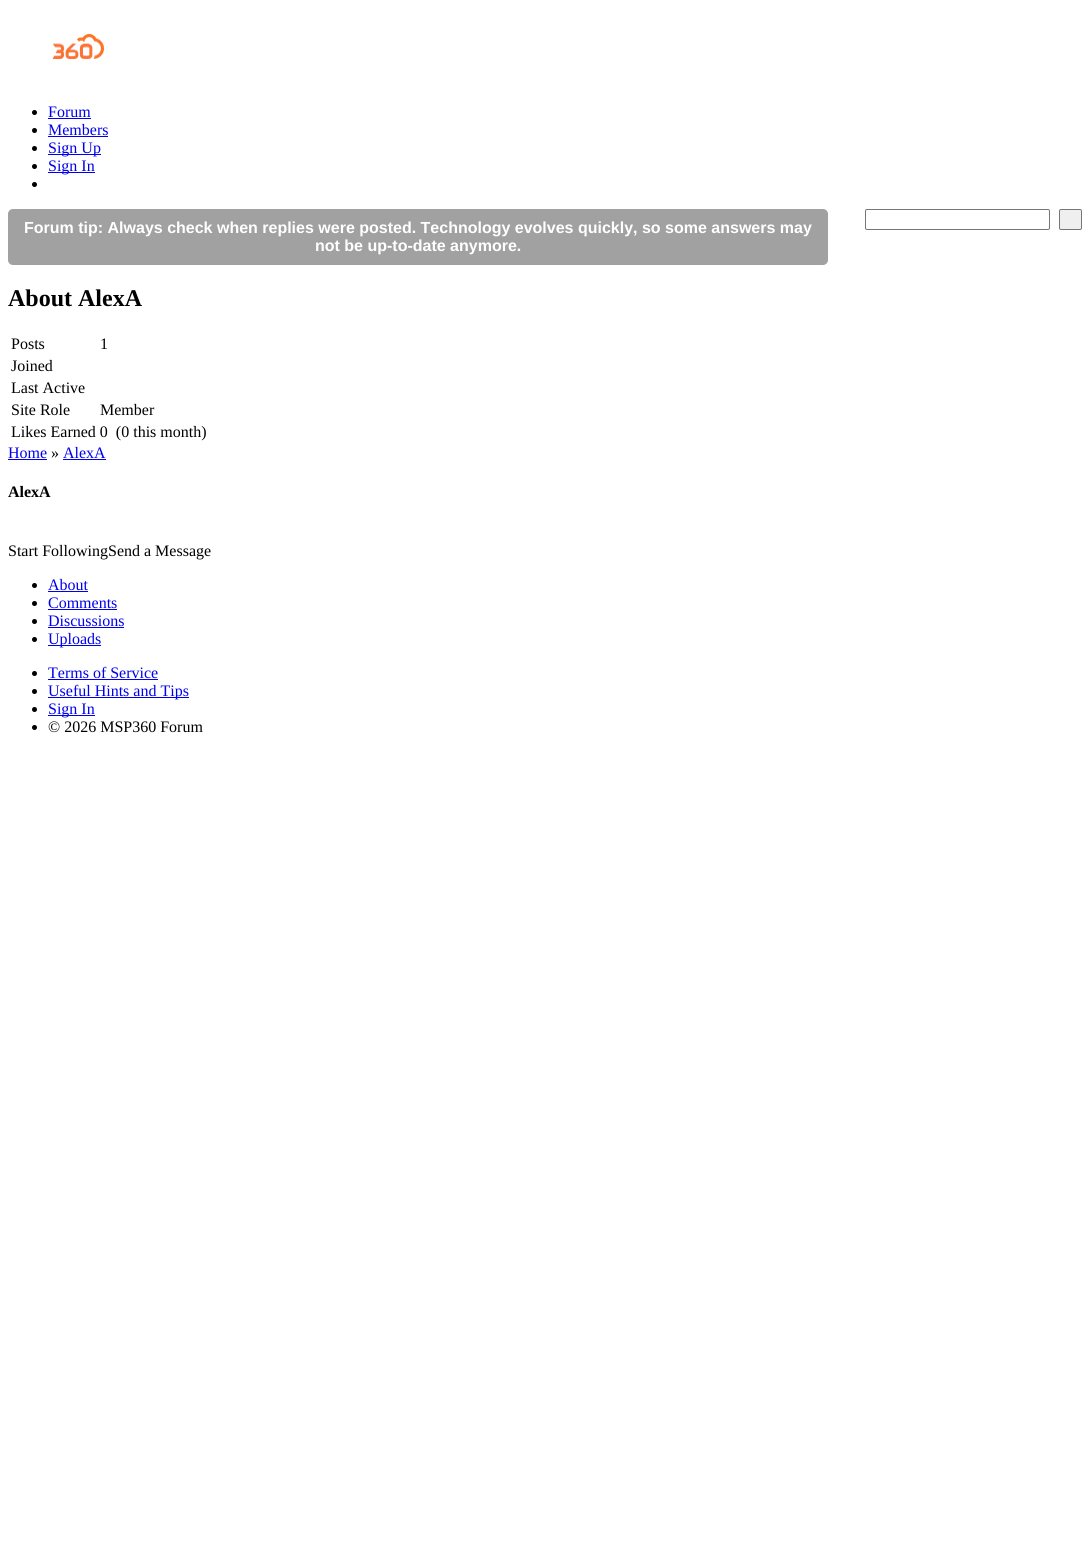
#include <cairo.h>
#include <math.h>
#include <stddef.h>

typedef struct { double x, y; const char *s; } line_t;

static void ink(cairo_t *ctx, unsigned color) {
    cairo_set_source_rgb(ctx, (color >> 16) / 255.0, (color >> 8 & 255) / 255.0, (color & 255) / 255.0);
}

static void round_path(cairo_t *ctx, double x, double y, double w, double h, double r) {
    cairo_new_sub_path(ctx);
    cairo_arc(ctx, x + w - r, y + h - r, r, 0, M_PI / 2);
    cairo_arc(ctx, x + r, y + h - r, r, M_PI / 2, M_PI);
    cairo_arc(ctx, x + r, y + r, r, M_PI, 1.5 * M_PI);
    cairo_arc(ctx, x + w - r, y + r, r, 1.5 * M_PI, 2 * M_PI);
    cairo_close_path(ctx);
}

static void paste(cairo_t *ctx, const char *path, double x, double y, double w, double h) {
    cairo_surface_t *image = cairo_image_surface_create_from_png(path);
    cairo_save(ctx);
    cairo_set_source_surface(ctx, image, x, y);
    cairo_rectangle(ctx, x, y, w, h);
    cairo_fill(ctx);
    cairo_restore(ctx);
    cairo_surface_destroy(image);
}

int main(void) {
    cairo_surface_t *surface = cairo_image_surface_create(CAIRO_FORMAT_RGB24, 1090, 1542);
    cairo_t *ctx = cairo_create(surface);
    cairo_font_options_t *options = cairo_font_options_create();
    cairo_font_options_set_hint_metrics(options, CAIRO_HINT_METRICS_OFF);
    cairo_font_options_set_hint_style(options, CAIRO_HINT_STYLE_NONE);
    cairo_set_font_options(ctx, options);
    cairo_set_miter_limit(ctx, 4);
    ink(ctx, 0xFFFFFF);
    cairo_paint(ctx);
    paste(ctx, "media/1.png", 52, 34, 52, 25);
    ink(ctx, 0x000000);
    cairo_arc(ctx, 34.5, 112.5, 2.5, 0, 2 * M_PI);
    cairo_fill(ctx);
    cairo_select_font_face(ctx, "Liberation Serif", CAIRO_FONT_SLANT_NORMAL, CAIRO_FONT_WEIGHT_NORMAL);
    cairo_set_font_size(ctx, 16);
    ink(ctx, 0x0000EE);
    cairo_move_to(ctx, 48, 117);
    cairo_show_text(ctx, "Forum");
    cairo_rectangle(ctx, 48, 118, 43, 1);
    cairo_fill(ctx);
    ink(ctx, 0x000000);
    cairo_arc(ctx, 34.5, 130.5, 2.5, 0, 2 * M_PI);
    cairo_fill(ctx);
    ink(ctx, 0x0000EE);
    cairo_move_to(ctx, 48, 135);
    cairo_show_text(ctx, "Members");
    cairo_rectangle(ctx, 48, 136, 60, 1);
    cairo_fill(ctx);
    ink(ctx, 0x000000);
    cairo_arc(ctx, 34.5, 148.5, 2.5, 0, 2 * M_PI);
    cairo_fill(ctx);
    ink(ctx, 0x0000EE);
    cairo_rectangle(ctx, 48, 154, 53, 1);
    cairo_fill(ctx);
    cairo_move_to(ctx, 48, 153);
    cairo_show_text(ctx, "Sign Up");
    ink(ctx, 0x000000);
    cairo_new_path(ctx);
    cairo_arc(ctx, 34.5, 166.5, 2.5, 0, 2 * M_PI);
    cairo_fill(ctx);
    ink(ctx, 0x0000EE);
    cairo_rectangle(ctx, 48, 172, 47, 1);
    cairo_fill(ctx);
    cairo_move_to(ctx, 48, 171);
    cairo_show_text(ctx, "Sign In");
    ink(ctx, 0x000000);
    cairo_new_path(ctx);
    cairo_arc(ctx, 34.5, 184.5, 2.5, 0, 2 * M_PI);
    cairo_fill(ctx);
    round_path(ctx, 865.5, 209.5, 184, 20, 1.5);
    ink(ctx, 0x767676);
    cairo_set_line_width(ctx, 1);
    cairo_stroke(ctx);
    ink(ctx, 0xEFEFEF);
    round_path(ctx, 1059.5, 209.5, 22, 20, 1.5);
    cairo_fill_preserve(ctx);
    ink(ctx, 0x767676);
    cairo_stroke(ctx);
    ink(ctx, 0xA1A1A1);
    round_path(ctx, 8, 209, 820, 56, 5);
    cairo_fill(ctx);
    cairo_select_font_face(ctx, "Liberation Sans", CAIRO_FONT_SLANT_NORMAL, CAIRO_FONT_WEIGHT_BOLD);
    ink(ctx, 0xFFFFFF);
    cairo_move_to(ctx, 24, 233);
    cairo_show_text(ctx, "Forum tip: Always check when replies were posted. Technology evolves quickly, so some answers may");
    cairo_move_to(ctx, 315, 251);
    cairo_show_text(ctx, "not be up-to-date anymore.");
    cairo_select_font_face(ctx, "Liberation Serif", CAIRO_FONT_SLANT_NORMAL, CAIRO_FONT_WEIGHT_BOLD);
    cairo_set_font_size(ctx, 24);
    ink(ctx, 0x000000);
    cairo_move_to(ctx, 8, 306);
    cairo_show_text(ctx, "About AlexA");
    cairo_select_font_face(ctx, "Liberation Serif", CAIRO_FONT_SLANT_NORMAL, CAIRO_FONT_WEIGHT_NORMAL);
    cairo_set_font_size(ctx, 16);
    {
        static const line_t items[] = {
            {11, 349, "Posts"},
            {100, 349, "1"},
            {11, 371, "Joined"},
            {11, 393, "Last Active"},
            {11, 415, "Site Role"},
            {100, 415, "Member"},
            {11, 437, "Likes Earned 0  (0 this month)"},
        };
        for (size_t i = 0; i < sizeof items / sizeof *items; i++) {
            cairo_move_to(ctx, items[i].x, items[i].y);
            cairo_show_text(ctx, items[i].s);
        }
    }
    ink(ctx, 0x0000EE);
    cairo_move_to(ctx, 8, 458);
    cairo_show_text(ctx, "Home");
    cairo_rectangle(ctx, 8, 459, 39, 1);
    cairo_fill(ctx);
    ink(ctx, 0x000000);
    cairo_move_to(ctx, 51, 458);
    cairo_show_text(ctx, "»");
    ink(ctx, 0x0000EE);
    cairo_rectangle(ctx, 63, 459, 43, 1);
    cairo_fill(ctx);
    cairo_move_to(ctx, 63, 458);
    cairo_show_text(ctx, "AlexA");
    cairo_select_font_face(ctx, "Liberation Serif", CAIRO_FONT_SLANT_NORMAL, CAIRO_FONT_WEIGHT_BOLD);
    ink(ctx, 0x000000);
    cairo_move_to(ctx, 8, 497);
    cairo_show_text(ctx, "AlexA");
    cairo_select_font_face(ctx, "Liberation Serif", CAIRO_FONT_SLANT_NORMAL, CAIRO_FONT_WEIGHT_NORMAL);
    cairo_move_to(ctx, 8, 556);
    cairo_show_text(ctx, "Start FollowingSend a Message");
    cairo_new_path(ctx);
    cairo_arc(ctx, 34.5, 585.5, 2.5, 0, 2 * M_PI);
    cairo_fill(ctx);
    ink(ctx, 0x0000EE);
    cairo_move_to(ctx, 48, 590);
    cairo_show_text(ctx, "About");
    cairo_rectangle(ctx, 48, 591, 40, 1);
    cairo_fill(ctx);
    ink(ctx, 0x000000);
    cairo_arc(ctx, 34.5, 603.5, 2.5, 0, 2 * M_PI);
    cairo_fill(ctx);
    ink(ctx, 0x0000EE);
    cairo_move_to(ctx, 48, 608);
    cairo_show_text(ctx, "Comments");
    cairo_rectangle(ctx, 48, 609, 69, 1);
    cairo_fill(ctx);
    ink(ctx, 0x000000);
    cairo_arc(ctx, 34.5, 621.5, 2.5, 0, 2 * M_PI);
    cairo_fill(ctx);
    ink(ctx, 0x0000EE);
    cairo_move_to(ctx, 48, 626);
    cairo_show_text(ctx, "Discussions");
    cairo_rectangle(ctx, 48, 627, 76, 1);
    cairo_fill(ctx);
    ink(ctx, 0x000000);
    cairo_arc(ctx, 34.5, 639.5, 2.5, 0, 2 * M_PI);
    cairo_fill(ctx);
    ink(ctx, 0x0000EE);
    cairo_rectangle(ctx, 48, 645, 53, 1);
    cairo_fill(ctx);
    cairo_move_to(ctx, 48, 644);
    cairo_show_text(ctx, "Uploads");
    ink(ctx, 0x000000);
    cairo_new_path(ctx);
    cairo_arc(ctx, 34.5, 673.5, 2.5, 0, 2 * M_PI);
    cairo_fill(ctx);
    ink(ctx, 0x0000EE);
    cairo_move_to(ctx, 48, 678);
    cairo_show_text(ctx, "Terms of Service");
    cairo_rectangle(ctx, 48, 679, 110, 1);
    cairo_fill(ctx);
    ink(ctx, 0x000000);
    cairo_arc(ctx, 34.5, 691.5, 2.5, 0, 2 * M_PI);
    cairo_fill(ctx);
    ink(ctx, 0x0000EE);
    cairo_rectangle(ctx, 48, 697, 141, 1);
    cairo_fill(ctx);
    cairo_move_to(ctx, 48, 696);
    cairo_show_text(ctx, "Useful Hints and Tips");
    ink(ctx, 0x000000);
    cairo_new_path(ctx);
    cairo_arc(ctx, 34.5, 709.5, 2.5, 0, 2 * M_PI);
    cairo_fill(ctx);
    ink(ctx, 0x0000EE);
    cairo_rectangle(ctx, 48, 715, 47, 1);
    cairo_fill(ctx);
    cairo_move_to(ctx, 48, 714);
    cairo_show_text(ctx, "Sign In");
    ink(ctx, 0x000000);
    cairo_new_path(ctx);
    cairo_arc(ctx, 34.5, 727.5, 2.5, 0, 2 * M_PI);
    cairo_fill(ctx);
    cairo_move_to(ctx, 48, 732);
    cairo_show_text(ctx, "© 2026 MSP360 Forum");
    cairo_surface_write_to_png(surface, "image.png");
    cairo_font_options_destroy(options);
    cairo_destroy(ctx);
    cairo_surface_destroy(surface);
    return 0;
}
